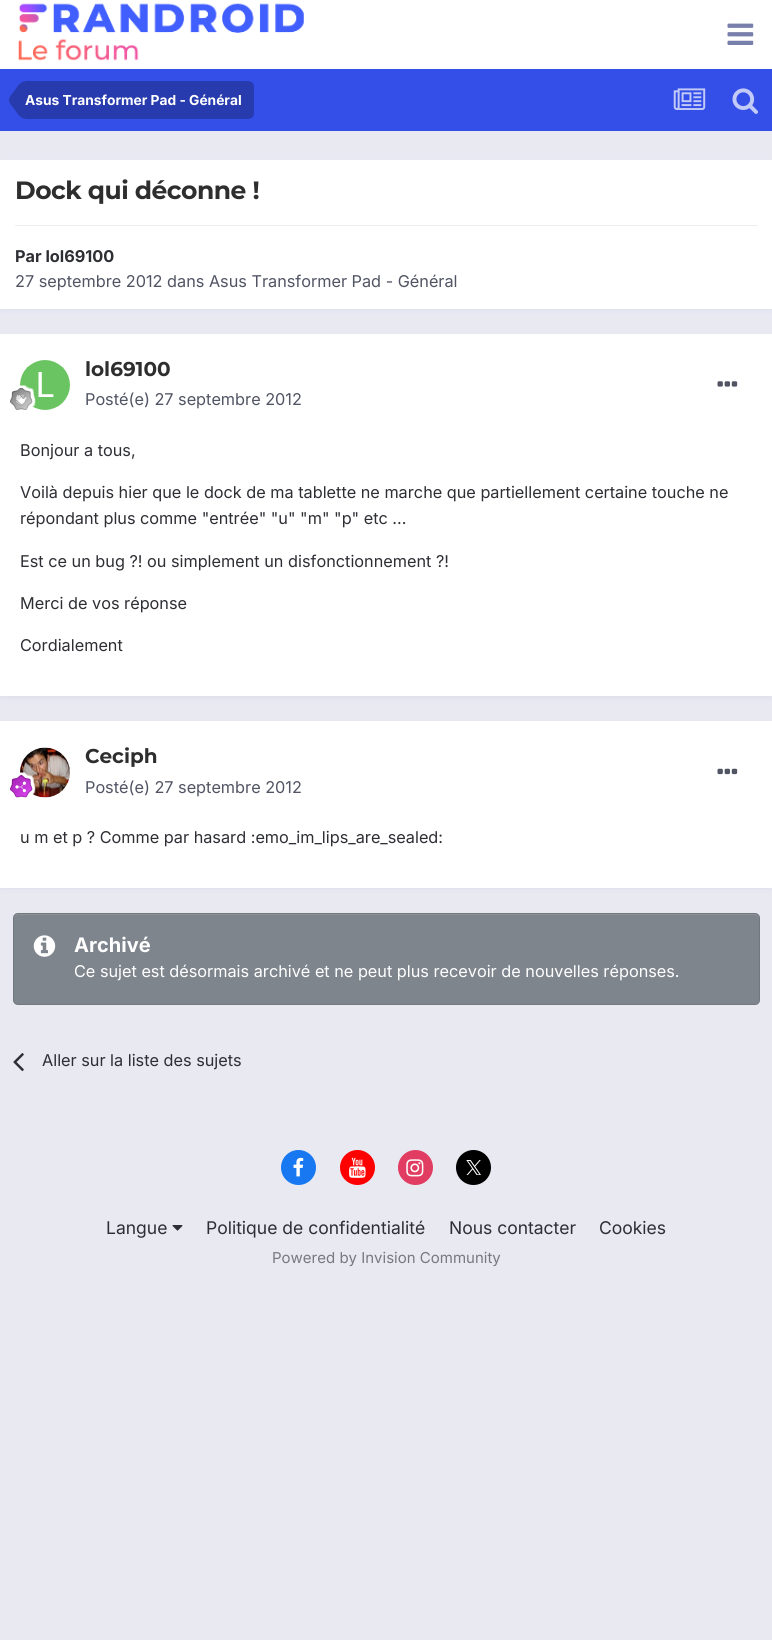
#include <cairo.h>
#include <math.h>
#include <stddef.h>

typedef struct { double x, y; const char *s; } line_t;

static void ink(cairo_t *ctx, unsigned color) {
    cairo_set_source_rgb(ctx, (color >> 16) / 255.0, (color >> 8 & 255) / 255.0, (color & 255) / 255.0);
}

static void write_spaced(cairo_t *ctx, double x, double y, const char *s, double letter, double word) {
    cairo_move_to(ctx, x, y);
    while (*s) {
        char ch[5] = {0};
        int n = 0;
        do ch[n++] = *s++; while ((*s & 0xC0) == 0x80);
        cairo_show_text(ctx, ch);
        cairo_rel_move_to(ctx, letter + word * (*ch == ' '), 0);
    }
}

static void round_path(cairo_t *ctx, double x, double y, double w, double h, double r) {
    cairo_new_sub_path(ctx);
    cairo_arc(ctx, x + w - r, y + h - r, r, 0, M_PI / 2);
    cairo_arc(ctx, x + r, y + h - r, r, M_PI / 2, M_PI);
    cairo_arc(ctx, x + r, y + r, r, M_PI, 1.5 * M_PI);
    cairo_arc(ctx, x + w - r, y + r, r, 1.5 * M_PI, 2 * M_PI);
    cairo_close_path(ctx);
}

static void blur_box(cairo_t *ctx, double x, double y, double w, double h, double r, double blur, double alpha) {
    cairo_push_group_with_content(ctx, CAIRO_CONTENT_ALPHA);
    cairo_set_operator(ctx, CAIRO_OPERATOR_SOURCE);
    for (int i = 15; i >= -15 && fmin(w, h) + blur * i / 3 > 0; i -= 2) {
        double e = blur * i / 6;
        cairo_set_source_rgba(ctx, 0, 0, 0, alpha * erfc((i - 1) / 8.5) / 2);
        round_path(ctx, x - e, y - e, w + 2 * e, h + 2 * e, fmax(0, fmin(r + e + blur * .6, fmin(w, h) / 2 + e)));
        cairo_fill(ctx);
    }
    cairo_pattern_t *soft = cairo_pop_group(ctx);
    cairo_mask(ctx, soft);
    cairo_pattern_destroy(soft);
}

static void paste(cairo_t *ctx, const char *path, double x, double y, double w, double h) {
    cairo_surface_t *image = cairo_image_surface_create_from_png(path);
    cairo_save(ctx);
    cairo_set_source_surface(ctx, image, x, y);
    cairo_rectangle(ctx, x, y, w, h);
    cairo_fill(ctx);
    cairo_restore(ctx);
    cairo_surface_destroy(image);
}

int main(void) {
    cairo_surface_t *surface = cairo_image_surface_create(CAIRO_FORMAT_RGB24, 772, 1640);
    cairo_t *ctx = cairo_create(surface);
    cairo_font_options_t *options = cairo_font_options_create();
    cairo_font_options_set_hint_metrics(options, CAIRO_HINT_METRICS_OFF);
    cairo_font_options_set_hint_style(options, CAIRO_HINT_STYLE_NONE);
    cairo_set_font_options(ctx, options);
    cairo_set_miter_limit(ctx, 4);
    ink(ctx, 0xE8E9F1);
    cairo_paint(ctx);
    ink(ctx, 0xFFFFFF);
    cairo_rectangle(ctx, 0, 0, 772, 69);
    cairo_fill(ctx);
    paste(ctx, "media/1.png", 18, 3, 286, 58);
    paste(ctx, "media/2.png", 727, 23, 27, 22);
    ink(ctx, 0x344FE8);
    cairo_rectangle(ctx, 0, 69, 772, 62);
    cairo_fill(ctx);
    ink(ctx, 0x273BAE);
    cairo_new_path(ctx);
    cairo_move_to(ctx, 25, 81);
    cairo_line_to(ctx, 248, 81);
    cairo_curve_to(ctx, 251.5, 81, 254, 83.5, 254, 87);
    cairo_line_to(ctx, 254, 113);
    cairo_curve_to(ctx, 254, 116.5, 251.5, 119, 248, 119);
    cairo_line_to(ctx, 25, 119);
    cairo_close_path(ctx);
    cairo_fill(ctx);
    cairo_new_path(ctx);
    cairo_move_to(ctx, 25, 100);
    cairo_line_to(ctx, 25, 118.5);
    cairo_curve_to(ctx, 19.5, 118.5, 16.5, 112, 14, 108.5);
    cairo_curve_to(ctx, 12, 106, 9, 103.5, 9, 100);
    cairo_close_path(ctx);
    cairo_move_to(ctx, 25, 100);
    cairo_line_to(ctx, 9, 100);
    cairo_curve_to(ctx, 9, 96.5, 12, 94, 14, 91.5);
    cairo_curve_to(ctx, 16.5, 88, 19.5, 81.5, 25, 81.5);
    cairo_close_path(ctx);
    cairo_fill(ctx);
    cairo_select_font_face(ctx, "Inter", CAIRO_FONT_SLANT_NORMAL, CAIRO_FONT_WEIGHT_BOLD);
    cairo_set_font_size(ctx, 13.75);
    ink(ctx, 0xFFFFFF);
    cairo_move_to(ctx, 25, 105);
    cairo_show_text(ctx, "Asus Transformer Pad - Général");
    paste(ctx, "media/3.png", 673, 88, 33, 22);
    paste(ctx, "media/4.png", 732, 88, 26, 26);
    ink(ctx, 0x787FAA);
    blur_box(ctx, 1, 164, 770, 146, 0, 2.5, 0.1);
    ink(ctx, 0xFFFFFF);
    cairo_rectangle(ctx, 0, 160, 772, 149);
    cairo_fill(ctx);
    cairo_select_font_face(ctx, "Montserrat", CAIRO_FONT_SLANT_NORMAL, CAIRO_FONT_WEIGHT_BOLD);
    cairo_set_font_size(ctx, 25);
    ink(ctx, 0x2E2E2E);
    write_spaced(ctx, 15, 199, "Dock qui déconne !", -0.5, 0);
    ink(ctx, 0xEEEEEF);
    cairo_rectangle(ctx, 15, 225, 743, 1);
    cairo_fill(ctx);
    cairo_select_font_face(ctx, "Inter", CAIRO_FONT_SLANT_NORMAL, CAIRO_FONT_WEIGHT_BOLD);
    cairo_set_font_size(ctx, 16.25);
    ink(ctx, 0x2E2F34);
    cairo_move_to(ctx, 15, 262);
    cairo_show_text(ctx, "Par lol69100");
    cairo_select_font_face(ctx, "Inter", CAIRO_FONT_SLANT_NORMAL, CAIRO_FONT_WEIGHT_NORMAL);
    ink(ctx, 0x515463);
    cairo_move_to(ctx, 15, 287);
    cairo_show_text(ctx, "27 septembre 2012 dans Asus Transformer Pad - Général");
    ink(ctx, 0x787FAA);
    blur_box(ctx, 1, 338, 770, 360, 0, 2.5, 0.1);
    ink(ctx, 0xFFFFFF);
    cairo_rectangle(ctx, 0, 334, 772, 362);
    cairo_fill(ctx);
    paste(ctx, "media/5.png", 20, 360, 50, 50);
    paste(ctx, "media/6.png", 10, 385, 26, 25);
    cairo_select_font_face(ctx, "Montserrat", CAIRO_FONT_SLANT_NORMAL, CAIRO_FONT_WEIGHT_BOLD);
    cairo_set_font_size(ctx, 20);
    ink(ctx, 0x2E2E2E);
    cairo_move_to(ctx, 85, 376);
    cairo_show_text(ctx, "lol69100");
    cairo_select_font_face(ctx, "Inter", CAIRO_FONT_SLANT_NORMAL, CAIRO_FONT_WEIGHT_NORMAL);
    cairo_set_font_size(ctx, 16.25);
    ink(ctx, 0x515463);
    cairo_move_to(ctx, 85, 405);
    cairo_show_text(ctx, "Posté(e) 27 septembre 2012");
    paste(ctx, "media/7.png", 717, 381, 21, 6);
    ink(ctx, 0x2E2F34);
    {
        static const line_t items[] = {
            {20, 456, "Bonjour a tous,"},
            {20, 498, "Voilà depuis hier que le dock de ma tablette ne marche que partiellement certaine touche ne"},
            {20, 524, "répondant plus comme \"entrée\" \"u\" \"m\" \"p\" etc ..."},
            {20, 567, "Est ce un bug ?! ou simplement un disfonctionnement ?!"},
            {20, 609, "Merci de vos réponse"},
            {20, 651, "Cordialement"},
        };
        for (size_t i = 0; i < sizeof items / sizeof *items; i++) {
            cairo_move_to(ctx, items[i].x, items[i].y);
            cairo_show_text(ctx, items[i].s);
        }
    }
    ink(ctx, 0x787FAA);
    blur_box(ctx, 1, 725, 770, 164, 0, 2.5, 0.1);
    ink(ctx, 0xFFFFFF);
    cairo_rectangle(ctx, 0, 721, 772, 167);
    cairo_fill(ctx);
    paste(ctx, "media/8.png", 20, 747, 50, 51);
    paste(ctx, "media/9.png", 10, 772, 26, 26);
    cairo_select_font_face(ctx, "Montserrat", CAIRO_FONT_SLANT_NORMAL, CAIRO_FONT_WEIGHT_BOLD);
    cairo_set_font_size(ctx, 20);
    ink(ctx, 0x2E2E2E);
    cairo_move_to(ctx, 85, 763);
    cairo_show_text(ctx, "Ceciph");
    cairo_select_font_face(ctx, "Inter", CAIRO_FONT_SLANT_NORMAL, CAIRO_FONT_WEIGHT_NORMAL);
    cairo_set_font_size(ctx, 16.25);
    ink(ctx, 0x515463);
    cairo_move_to(ctx, 85, 793);
    cairo_show_text(ctx, "Posté(e) 27 septembre 2012");
    paste(ctx, "media/10.png", 717, 768, 21, 7);
    ink(ctx, 0x2E2F34);
    cairo_move_to(ctx, 20, 843);
    cairo_show_text(ctx, "u m et p ? Comme par hasard :emo_im_lips_are_sealed:");
    ink(ctx, 0x7F858D);
    round_path(ctx, 13, 913, 747, 92, 5);
    cairo_fill(ctx);
    ink(ctx, 0x8C9198);
    cairo_new_path(ctx);
    cairo_move_to(ctx, 18, 915);
    cairo_line_to(ctx, 755, 915);
    cairo_curve_to(ctx, 757, 915, 759, 917, 759, 919);
    cairo_line_to(ctx, 759, 918);
    cairo_curve_to(ctx, 759, 916, 757, 914, 755, 914);
    cairo_line_to(ctx, 18, 914);
    cairo_curve_to(ctx, 16, 914, 14, 916, 14, 918);
    cairo_line_to(ctx, 14, 919);
    cairo_curve_to(ctx, 14, 917, 15, 915, 18, 915);
    cairo_close_path(ctx);
    cairo_fill(ctx);
    round_path(ctx, 13.5, 913.5, 746, 91, 4.5);
    cairo_set_source_rgba(ctx, 0, 0, 0, 0.1);
    cairo_set_line_width(ctx, 1);
    cairo_stroke(ctx);
    paste(ctx, "media/11.png", 33, 935, 23, 22);
    cairo_select_font_face(ctx, "Inter", CAIRO_FONT_SLANT_NORMAL, CAIRO_FONT_WEIGHT_BOLD);
    cairo_set_font_size(ctx, 20);
    ink(ctx, 0xFFFFFF);
    cairo_move_to(ctx, 74, 952);
    cairo_show_text(ctx, "Archivé");
    cairo_select_font_face(ctx, "Inter", CAIRO_FONT_SLANT_NORMAL, CAIRO_FONT_WEIGHT_NORMAL);
    cairo_set_font_size(ctx, 16.25);
    cairo_move_to(ctx, 74, 977);
    cairo_show_text(ctx, "Ce sujet est désormais archivé et ne peut plus recevoir de nouvelles réponses.");
    paste(ctx, "media/12.png", 13, 1053, 11, 19);
    ink(ctx, 0x2E2F34);
    cairo_move_to(ctx, 42, 1066);
    cairo_show_text(ctx, "Aller sur la liste des sujets");
    ink(ctx, 0x1778F2);
    cairo_new_path(ctx);
    cairo_arc(ctx, 298.5, 1167.5, 17.5, 0, 2 * M_PI);
    cairo_fill(ctx);
    paste(ctx, "media/13.png", 293, 1157, 11, 20);
    ink(ctx, 0xFF0000);
    cairo_arc(ctx, 357.5, 1167.5, 17.5, 0, 2 * M_PI);
    cairo_fill(ctx);
    paste(ctx, "media/14.png", 349, 1157, 17, 21);
    ink(ctx, 0xE13D62);
    cairo_arc(ctx, 415.5, 1167.5, 17.5, 0, 2 * M_PI);
    cairo_fill(ctx);
    paste(ctx, "media/15.png", 406, 1159, 18, 18);
    ink(ctx, 0x000000);
    cairo_arc(ctx, 473.5, 1167.5, 17.5, 0, 2 * M_PI);
    cairo_fill(ctx);
    paste(ctx, "media/16.png", 466, 1160, 15, 15);
    cairo_set_font_size(ctx, 17.5);
    ink(ctx, 0x2E2F34);
    cairo_move_to(ctx, 106, 1234);
    cairo_show_text(ctx, "Langue");
    paste(ctx, "media/17.png", 172, 1225, 11, 6);
    {
        static const line_t items[] = {
            {206, 1234, "Politique de confidentialité"},
            {449, 1234, "Nous contacter"},
            {599, 1234, "Cookies"},
        };
        for (size_t i = 0; i < sizeof items / sizeof *items; i++) {
            cairo_move_to(ctx, items[i].x, items[i].y);
            cairo_show_text(ctx, items[i].s);
        }
    }
    cairo_set_font_size(ctx, 15);
    ink(ctx, 0x787980);
    cairo_move_to(ctx, 272, 1263);
    cairo_show_text(ctx, "Powered by Invision Community");
    cairo_surface_write_to_png(surface, "image.png");
    cairo_font_options_destroy(options);
    cairo_destroy(ctx);
    cairo_surface_destroy(surface);
    return 0;
}
